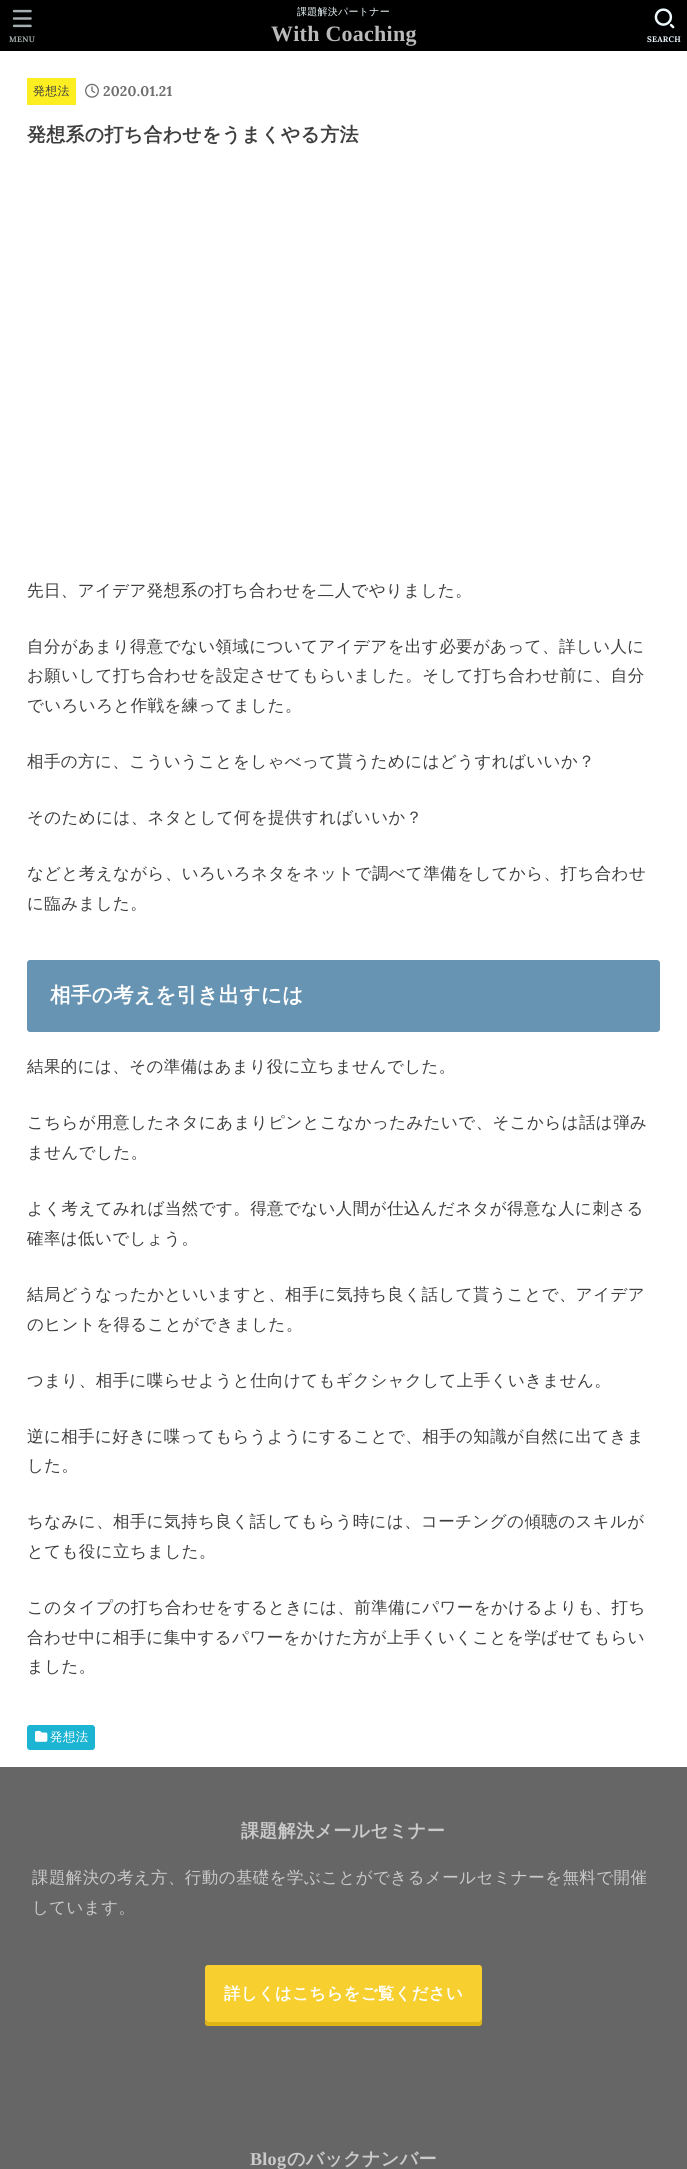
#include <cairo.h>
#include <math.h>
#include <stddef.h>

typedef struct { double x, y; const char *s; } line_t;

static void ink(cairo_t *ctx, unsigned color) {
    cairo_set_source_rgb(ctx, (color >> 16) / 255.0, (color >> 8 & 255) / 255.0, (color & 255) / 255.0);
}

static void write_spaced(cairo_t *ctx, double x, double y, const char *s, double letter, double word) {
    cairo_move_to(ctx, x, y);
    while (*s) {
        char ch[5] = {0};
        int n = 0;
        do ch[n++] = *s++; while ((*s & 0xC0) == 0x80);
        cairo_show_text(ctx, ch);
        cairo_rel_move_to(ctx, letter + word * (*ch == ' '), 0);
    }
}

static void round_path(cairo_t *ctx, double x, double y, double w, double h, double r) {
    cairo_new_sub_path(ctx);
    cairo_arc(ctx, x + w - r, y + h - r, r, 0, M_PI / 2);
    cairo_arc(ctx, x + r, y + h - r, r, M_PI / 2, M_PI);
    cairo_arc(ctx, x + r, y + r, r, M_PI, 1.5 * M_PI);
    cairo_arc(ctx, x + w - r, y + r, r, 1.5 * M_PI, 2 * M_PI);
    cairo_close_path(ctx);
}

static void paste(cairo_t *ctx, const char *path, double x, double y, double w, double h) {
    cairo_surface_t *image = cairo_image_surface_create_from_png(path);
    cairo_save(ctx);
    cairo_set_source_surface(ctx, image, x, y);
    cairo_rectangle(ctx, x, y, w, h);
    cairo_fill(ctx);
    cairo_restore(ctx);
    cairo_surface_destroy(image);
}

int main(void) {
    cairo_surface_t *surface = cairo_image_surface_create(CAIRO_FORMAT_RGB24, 687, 2169);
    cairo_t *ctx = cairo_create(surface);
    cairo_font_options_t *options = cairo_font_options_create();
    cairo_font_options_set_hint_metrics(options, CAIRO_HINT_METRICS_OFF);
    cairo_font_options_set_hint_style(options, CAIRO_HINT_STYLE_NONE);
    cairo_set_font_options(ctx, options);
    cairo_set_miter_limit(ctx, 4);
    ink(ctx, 0xFFFFFF);
    cairo_paint(ctx);
    ink(ctx, 0x000000);
    cairo_rectangle(ctx, 0, 0, 687, 51);
    cairo_fill(ctx);
    paste(ctx, "media/1.png", 12, 9, 20, 19);
    cairo_select_font_face(ctx, "Lora", CAIRO_FONT_SLANT_NORMAL, CAIRO_FONT_WEIGHT_BOLD);
    cairo_set_font_size(ctx, 8);
    ink(ctx, 0xA6AEB0);
    write_spaced(ctx, 9, 42, "MENU", 0.25, 0);
    cairo_select_font_face(ctx, "WenQuanYi Zen Hei Medium", CAIRO_FONT_SLANT_NORMAL, CAIRO_FONT_WEIGHT_NORMAL);
    cairo_set_font_size(ctx, 10);
    ink(ctx, 0xEDF9FC);
    write_spaced(ctx, 297, 15, "課題解決パートナー", 0.25, 0);
    cairo_select_font_face(ctx, "Liberation Serif", CAIRO_FONT_SLANT_NORMAL, CAIRO_FONT_WEIGHT_BOLD);
    cairo_set_font_size(ctx, 22);
    ink(ctx, 0xBABABA);
    write_spaced(ctx, 271, 41, "With Coaching", 0.25, 0);
    paste(ctx, "media/2.png", 654, 8, 21, 21);
    cairo_select_font_face(ctx, "Lora", CAIRO_FONT_SLANT_NORMAL, CAIRO_FONT_WEIGHT_BOLD);
    cairo_set_font_size(ctx, 8);
    ink(ctx, 0xEDF9FC);
    write_spaced(ctx, 647, 42, "SEARCH", 0.25, 0);
    ink(ctx, 0xFCEE21);
    cairo_rectangle(ctx, 27, 78, 49, 27);
    cairo_fill(ctx);
    cairo_select_font_face(ctx, "WenQuanYi Zen Hei Medium", CAIRO_FONT_SLANT_NORMAL, CAIRO_FONT_WEIGHT_NORMAL);
    cairo_set_font_size(ctx, 12);
    ink(ctx, 0x3E3E3E);
    write_spaced(ctx, 33, 95, "発想法", 0.25, 0);
    paste(ctx, "media/3.png", 85, 83, 14, 15);
    cairo_select_font_face(ctx, "Lora", CAIRO_FONT_SLANT_NORMAL, CAIRO_FONT_WEIGHT_BOLD);
    cairo_set_font_size(ctx, 14);
    ink(ctx, 0x6E6E6E);
    write_spaced(ctx, 103, 96, "2020.01.21", 0.25, 0);
    cairo_select_font_face(ctx, "WenQuanYi Zen Hei", CAIRO_FONT_SLANT_NORMAL, CAIRO_FONT_WEIGHT_BOLD);
    cairo_set_font_size(ctx, 19);
    ink(ctx, 0x3E3E3E);
    write_spaced(ctx, 27, 141, "発想系の打ち合わせをうまくやる方法", 0.25, 0);
    cairo_select_font_face(ctx, "WenQuanYi Zen Hei Medium", CAIRO_FONT_SLANT_NORMAL, CAIRO_FONT_WEIGHT_NORMAL);
    cairo_set_font_size(ctx, 16.5);
    {
        static const line_t items[] = {
            {27, 596, "先日、アイデア発想系の打ち合わせを二人でやりました。"},
            {27, 652, "自分があまり得意でない領域についてアイデアを出す必要があって、詳しい人に"},
            {27, 681, "お願いして打ち合わせを設定させてもらいました。そして打ち合わせ前に、自分"},
            {27, 711, "でいろいろと作戦を練ってました。"},
            {27, 767, "相手の方に、こういうことをしゃべって貰うためにはどうすればいいか？"},
            {27, 823, "そのためには、ネタとして何を提供すればいいか？"},
            {27, 879, "などと考えながら、いろいろネタをネットで調べて準備をしてから、打ち合わせ"},
            {27, 909, "に臨みました。"},
        };
        for (size_t i = 0; i < sizeof items / sizeof *items; i++) {
            write_spaced(ctx, items[i].x, items[i].y, items[i].s, 0.4, 0);
        }
    }
    ink(ctx, 0x6794B2);
    round_path(ctx, 27, 960, 633, 72, 3);
    cairo_fill(ctx);
    cairo_select_font_face(ctx, "WenQuanYi Zen Hei", CAIRO_FONT_SLANT_NORMAL, CAIRO_FONT_WEIGHT_BOLD);
    cairo_set_font_size(ctx, 20.6);
    ink(ctx, 0xFFFFFF);
    write_spaced(ctx, 50, 1002, "相手の考えを引き出すには", 0.25, 0);
    cairo_select_font_face(ctx, "WenQuanYi Zen Hei Medium", CAIRO_FONT_SLANT_NORMAL, CAIRO_FONT_WEIGHT_NORMAL);
    cairo_set_font_size(ctx, 16.5);
    ink(ctx, 0x3E3E3E);
    {
        static const line_t items[] = {
            {27, 1072, "結果的には、その準備はあまり役に立ちませんでした。"},
            {27, 1128, "こちらが用意したネタにあまりピンとこなかったみたいで、そこからは話は弾み"},
            {27, 1158, "ませんでした。"},
            {27, 1214, "よく考えてみれば当然です。得意でない人間が仕込んだネタが得意な人に刺さる"},
            {27, 1244, "確率は低いでしょう。"},
            {27, 1300, "結局どうなったかといいますと、相手に気持ち良く話して貰うことで、アイデア"},
            {27, 1330, "のヒントを得ることができました。"},
            {27, 1386, "つまり、相手に喋らせようと仕向けてもギクシャクして上手くいきません。"},
            {27, 1442, "逆に相手に好きに喋ってもらうようにすることで、相手の知識が自然に出てきま"},
            {27, 1471, "した。"},
            {27, 1527, "ちなみに、相手に気持ち良く話してもらう時には、コーチングの傾聴のスキルが"},
            {27, 1557, "とても役に立ちました。"},
            {27, 1613, "このタイプの打ち合わせをするときには、前準備にパワーをかけるよりも、打ち"},
            {27, 1643, "合わせ中に相手に集中するパワーをかけた方が上手くいくことを学ばせてもらい"},
            {27, 1672, "ました。"},
        };
        for (size_t i = 0; i < sizeof items / sizeof *items; i++) {
            write_spaced(ctx, items[i].x, items[i].y, items[i].s, 0.4, 0);
        }
    }
    ink(ctx, 0x1BB4D3);
    round_path(ctx, 27.5, 1725.5, 67, 24, 2.5);
    cairo_fill_preserve(ctx);
    cairo_set_line_width(ctx, 1);
    cairo_stroke(ctx);
    paste(ctx, "media/4.png", 35, 1730, 13, 12);
    cairo_set_font_size(ctx, 12.5);
    ink(ctx, 0xFFFFFF);
    write_spaced(ctx, 50, 1741, "発想法", 0.4, 0);
    ink(ctx, 0x666666);
    cairo_rectangle(ctx, 0, 1767, 687, 402);
    cairo_fill(ctx);
    cairo_select_font_face(ctx, "WenQuanYi Zen Hei", CAIRO_FONT_SLANT_NORMAL, CAIRO_FONT_WEIGHT_BOLD);
    cairo_set_font_size(ctx, 18.1);
    ink(ctx, 0xCACACA);
    write_spaced(ctx, 241, 1837, "課題解決メールセミナー", 0.25, 0);
    cairo_select_font_face(ctx, "WenQuanYi Zen Hei Medium", CAIRO_FONT_SLANT_NORMAL, CAIRO_FONT_WEIGHT_NORMAL);
    cairo_set_font_size(ctx, 16.5);
    write_spaced(ctx, 32, 1883, "課題解決の考え方、行動の基礎を学ぶことができるメールセミナーを無料で開催", 0.4, 0);
    write_spaced(ctx, 32, 1913, "しています。", 0.4, 0);
    ink(ctx, 0xDEB615);
    cairo_new_path(ctx);
    cairo_move_to(ctx, 205, 2019);
    cairo_curve_to(ctx, 205, 2021, 204, 2025, 207, 2026);
    cairo_line_to(ctx, 479, 2026);
    cairo_curve_to(ctx, 483, 2026, 482, 2021, 482, 2019);
    cairo_curve_to(ctx, 482, 2021, 481, 2022, 479, 2022);
    cairo_line_to(ctx, 208, 2022);
    cairo_curve_to(ctx, 206, 2022, 205, 2021, 205, 2019);
    cairo_close_path(ctx);
    cairo_fill(ctx);
    ink(ctx, 0xF7CF2E);
    round_path(ctx, 205, 1965, 277, 57, 3);
    cairo_fill(ctx);
    cairo_select_font_face(ctx, "WenQuanYi Zen Hei", CAIRO_FONT_SLANT_NORMAL, CAIRO_FONT_WEIGHT_BOLD);
    ink(ctx, 0xFFFFFF);
    write_spaced(ctx, 224, 1999, "詳しくはこちらをご覧ください", 0.25, 0);
    cairo_select_font_face(ctx, "Liberation Serif", CAIRO_FONT_SLANT_NORMAL, CAIRO_FONT_WEIGHT_BOLD);
    cairo_set_font_size(ctx, 18.1);
    ink(ctx, 0xCACACA);
    write_spaced(ctx, 250, 2165, "Blog", 0.25, 0);
    cairo_select_font_face(ctx, "WenQuanYi Zen Hei", CAIRO_FONT_SLANT_NORMAL, CAIRO_FONT_WEIGHT_BOLD);
    write_spaced(ctx, 287, 2165, "のバックナンバー", 0.25, 0);
    cairo_surface_write_to_png(surface, "image.png");
    cairo_font_options_destroy(options);
    cairo_destroy(ctx);
    cairo_surface_destroy(surface);
    return 0;
}
